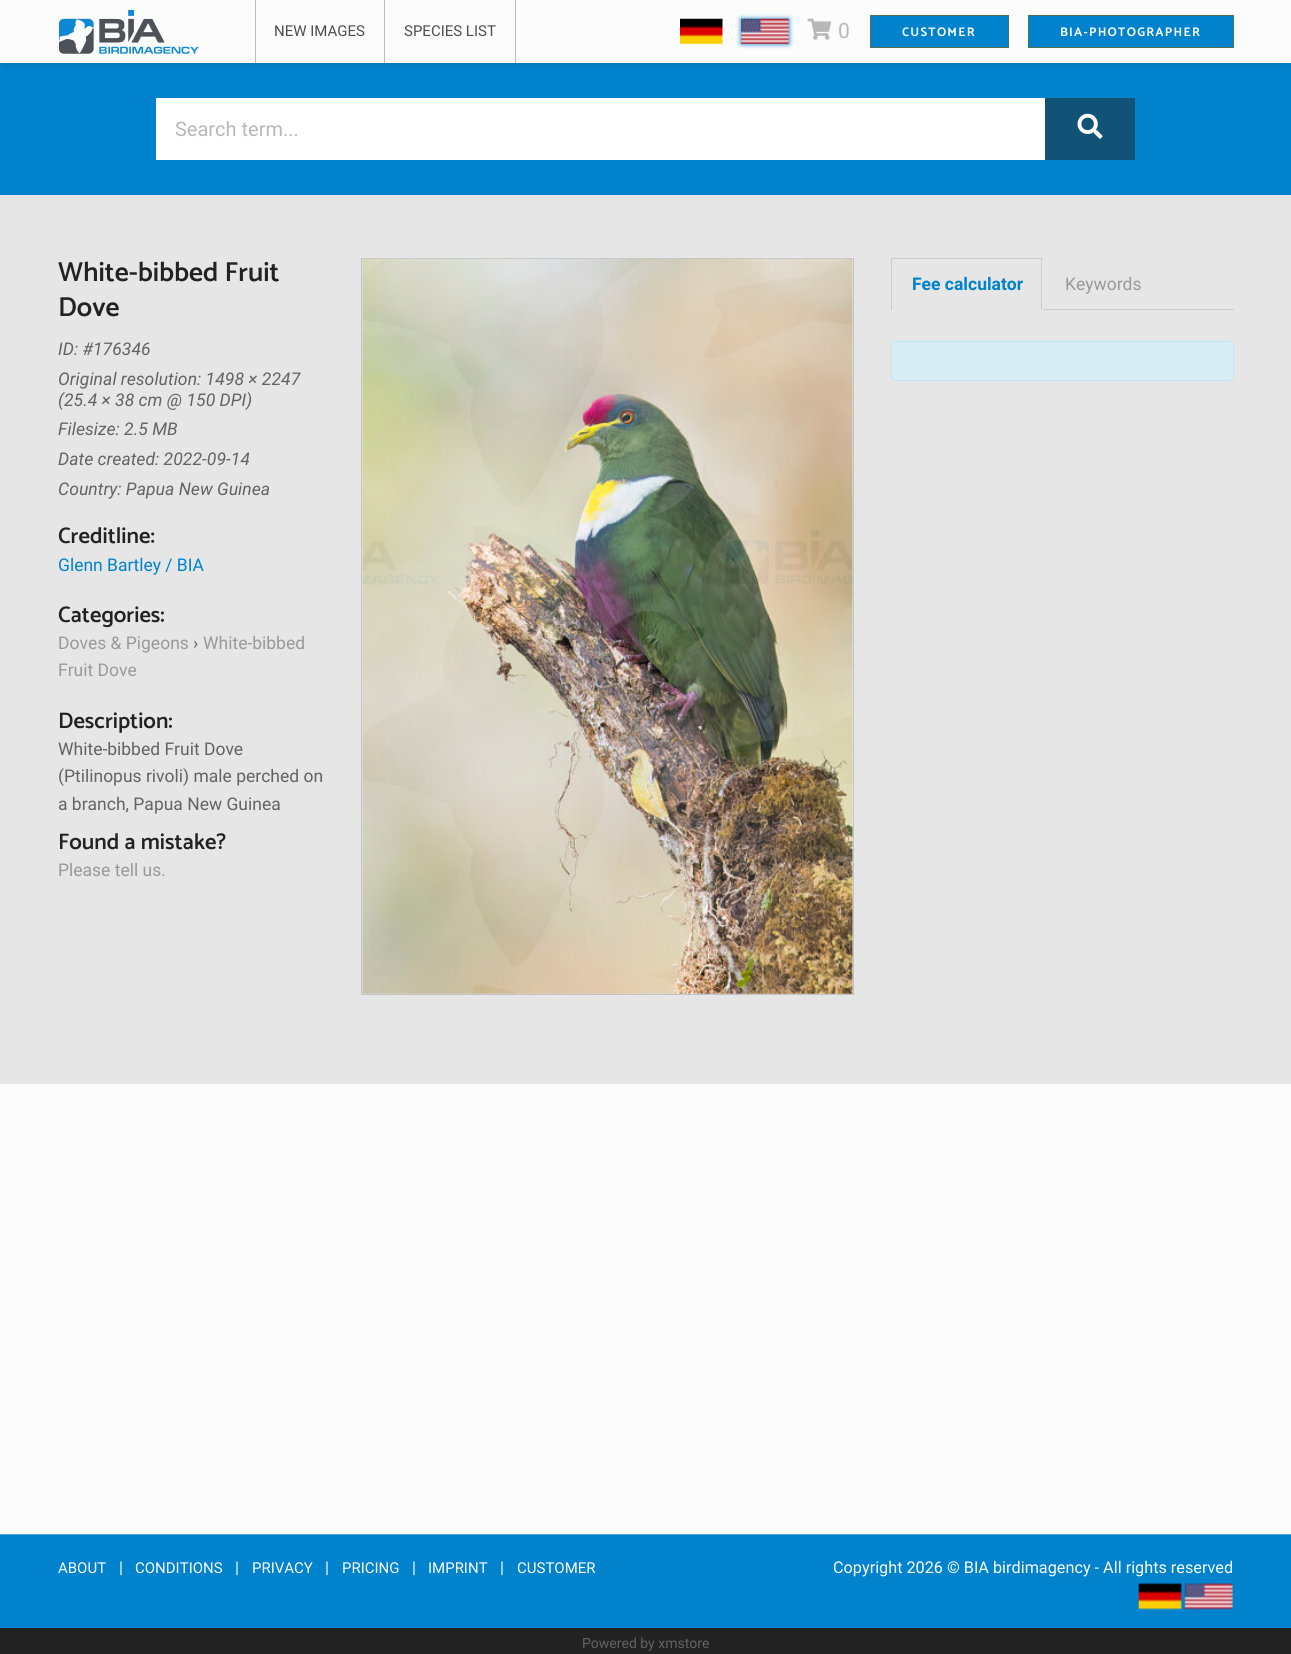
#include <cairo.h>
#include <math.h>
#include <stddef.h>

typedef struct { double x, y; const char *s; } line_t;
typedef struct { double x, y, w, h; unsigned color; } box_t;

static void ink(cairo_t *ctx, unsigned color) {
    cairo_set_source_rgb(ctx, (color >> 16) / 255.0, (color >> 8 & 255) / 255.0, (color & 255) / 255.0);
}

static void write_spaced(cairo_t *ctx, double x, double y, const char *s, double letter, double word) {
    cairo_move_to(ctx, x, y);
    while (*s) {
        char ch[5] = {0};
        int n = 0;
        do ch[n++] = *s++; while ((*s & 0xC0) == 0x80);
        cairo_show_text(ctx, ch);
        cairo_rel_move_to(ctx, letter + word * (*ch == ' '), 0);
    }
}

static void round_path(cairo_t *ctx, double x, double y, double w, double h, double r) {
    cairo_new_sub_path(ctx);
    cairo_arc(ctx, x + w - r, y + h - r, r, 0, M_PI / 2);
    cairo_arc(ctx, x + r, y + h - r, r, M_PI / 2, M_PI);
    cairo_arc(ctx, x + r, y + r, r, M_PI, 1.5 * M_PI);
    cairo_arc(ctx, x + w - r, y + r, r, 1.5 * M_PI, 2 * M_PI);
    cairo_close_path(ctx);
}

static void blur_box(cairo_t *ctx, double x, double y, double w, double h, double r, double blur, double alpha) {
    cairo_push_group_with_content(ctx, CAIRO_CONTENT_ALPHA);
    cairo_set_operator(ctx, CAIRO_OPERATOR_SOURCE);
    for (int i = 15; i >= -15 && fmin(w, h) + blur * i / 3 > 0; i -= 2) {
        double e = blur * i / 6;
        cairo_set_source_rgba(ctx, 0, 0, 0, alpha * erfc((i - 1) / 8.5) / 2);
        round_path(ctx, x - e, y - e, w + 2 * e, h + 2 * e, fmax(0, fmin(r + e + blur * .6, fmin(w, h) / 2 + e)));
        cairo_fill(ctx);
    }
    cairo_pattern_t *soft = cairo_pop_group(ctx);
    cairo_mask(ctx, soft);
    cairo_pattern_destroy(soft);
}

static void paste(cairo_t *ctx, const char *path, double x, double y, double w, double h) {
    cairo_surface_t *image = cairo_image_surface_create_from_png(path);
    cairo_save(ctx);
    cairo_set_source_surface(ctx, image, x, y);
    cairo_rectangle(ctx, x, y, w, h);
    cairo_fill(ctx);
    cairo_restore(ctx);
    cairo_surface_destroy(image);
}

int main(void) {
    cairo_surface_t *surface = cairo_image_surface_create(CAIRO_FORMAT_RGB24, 1291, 1654);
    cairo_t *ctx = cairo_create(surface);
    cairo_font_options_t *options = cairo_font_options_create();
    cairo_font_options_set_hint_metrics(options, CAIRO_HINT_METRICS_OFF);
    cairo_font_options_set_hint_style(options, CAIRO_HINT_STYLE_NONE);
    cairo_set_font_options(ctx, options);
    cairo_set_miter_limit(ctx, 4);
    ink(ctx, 0xFCFCFC);
    cairo_paint(ctx);
    ink(ctx, 0x0083CC);
    cairo_rectangle(ctx, 0, 63, 1291, 132);
    cairo_fill(ctx);
    ink(ctx, 0x000000);
    blur_box(ctx, 4, 10, 1284, 55, 0, 3, 0.12);
    ink(ctx, 0xFCFCFC);
    cairo_rectangle(ctx, 0, 6, 1291, 57);
    cairo_fill(ctx);
    paste(ctx, "media/1.png", 59, 10, 140, 44);
    ink(ctx, 0xBBBBBB);
    cairo_rectangle(ctx, 255, 0, 1, 63);
    cairo_fill(ctx);
    cairo_rectangle(ctx, 384, 0, 1, 63);
    cairo_fill(ctx);
    cairo_select_font_face(ctx, "Roboto", CAIRO_FONT_SLANT_NORMAL, CAIRO_FONT_WEIGHT_NORMAL);
    cairo_set_font_size(ctx, 15);
    ink(ctx, 0x4E4E4E);
    cairo_move_to(ctx, 274, 36);
    cairo_show_text(ctx, "NEW IMAGES");
    ink(ctx, 0xBBBBBB);
    cairo_rectangle(ctx, 515, 0, 1, 63);
    cairo_fill(ctx);
    ink(ctx, 0x4E4E4E);
    cairo_move_to(ctx, 404, 36);
    cairo_show_text(ctx, "SPECIES LIST");
    paste(ctx, "media/2.png", 680, 18, 43, 26);
    ink(ctx, 0x0083CC);
    blur_box(ctx, 741, 19, 48, 25, 0, 2.5, 1);
    paste(ctx, "media/3.png", 741, 18, 48, 26);
    paste(ctx, "media/4.png", 807, 18, 25, 22);
    cairo_set_font_size(ctx, 21);
    ink(ctx, 0xB8B8B8);
    write_spaced(ctx, 838, 38, "0", 1.25, 0);
    ink(ctx, 0x0083CC);
    cairo_rectangle(ctx, 870.5, 15.5, 138, 32);
    cairo_fill_preserve(ctx);
    ink(ctx, 0x516F51);
    cairo_set_line_width(ctx, 1);
    cairo_stroke(ctx);
    cairo_select_font_face(ctx, "Catamaran", CAIRO_FONT_SLANT_NORMAL, CAIRO_FONT_WEIGHT_BOLD);
    cairo_set_font_size(ctx, 12.5);
    ink(ctx, 0xFCFCFC);
    write_spaced(ctx, 902, 36, "CUSTOMER", 1.25, 0);
    ink(ctx, 0x0083CC);
    cairo_rectangle(ctx, 1028.5, 15.5, 205, 32);
    cairo_fill_preserve(ctx);
    ink(ctx, 0x516F51);
    cairo_stroke(ctx);
    ink(ctx, 0xFCFCFC);
    write_spaced(ctx, 1060, 36, "BIA-PHOTOGRAPHER", 1.25, 0);
    ink(ctx, 0x115277);
    cairo_rectangle(ctx, 1045, 98, 90, 62);
    cairo_fill(ctx);
    ink(ctx, 0xFFFFFF);
    cairo_rectangle(ctx, 156, 98, 889, 62);
    cairo_fill(ctx);
    cairo_select_font_face(ctx, "Roboto", CAIRO_FONT_SLANT_NORMAL, CAIRO_FONT_WEIGHT_NORMAL);
    cairo_set_font_size(ctx, 20);
    ink(ctx, 0xB8B8B8);
    cairo_move_to(ctx, 175, 136);
    cairo_show_text(ctx, "Search term...");
    paste(ctx, "media/5.png", 1077, 113, 26, 26);
    ink(ctx, 0xE6E6E6);
    cairo_rectangle(ctx, 0, 195, 1291, 889);
    cairo_fill(ctx);
    cairo_select_font_face(ctx, "Catamaran SemiBold", CAIRO_FONT_SLANT_NORMAL, CAIRO_FONT_WEIGHT_NORMAL);
    cairo_set_font_size(ctx, 27.5);
    ink(ctx, 0x222222);
    cairo_move_to(ctx, 58, 281);
    cairo_show_text(ctx, "White-bibbed Fruit");
    cairo_move_to(ctx, 58, 316);
    cairo_show_text(ctx, "Dove");
    cairo_select_font_face(ctx, "Roboto", CAIRO_FONT_SLANT_ITALIC, CAIRO_FONT_WEIGHT_NORMAL);
    cairo_set_font_size(ctx, 17.5);
    ink(ctx, 0x636363);
    {
        static const line_t items[] = {
            {58, 355, "ID: #176346"},
            {58, 385, "Original resolution: 1498 × 2247"},
            {58, 406, "(25.4 × 38 cm @ 150 DPI)"},
            {58, 435, "Filesize: 2.5 MB"},
            {58, 465, "Date created: 2022-09-14"},
            {58, 495, "Country: Papua New Guinea"},
        };
        for (size_t i = 0; i < sizeof items / sizeof *items; i++) {
            cairo_move_to(ctx, items[i].x, items[i].y);
            cairo_show_text(ctx, items[i].s);
        }
    }
    cairo_select_font_face(ctx, "Catamaran SemiBold", CAIRO_FONT_SLANT_NORMAL, CAIRO_FONT_WEIGHT_NORMAL);
    cairo_set_font_size(ctx, 22.5);
    ink(ctx, 0x222222);
    cairo_move_to(ctx, 58, 543);
    cairo_show_text(ctx, "Creditline:");
    cairo_select_font_face(ctx, "Roboto", CAIRO_FONT_SLANT_NORMAL, CAIRO_FONT_WEIGHT_NORMAL);
    cairo_set_font_size(ctx, 17.5);
    ink(ctx, 0x0083CC);
    cairo_move_to(ctx, 58, 571);
    cairo_show_text(ctx, "Glenn Bartley / BIA");
    cairo_select_font_face(ctx, "Catamaran SemiBold", CAIRO_FONT_SLANT_NORMAL, CAIRO_FONT_WEIGHT_NORMAL);
    cairo_set_font_size(ctx, 22.5);
    ink(ctx, 0x222222);
    cairo_move_to(ctx, 58, 622);
    cairo_show_text(ctx, "Categories:");
    cairo_select_font_face(ctx, "Roboto", CAIRO_FONT_SLANT_NORMAL, CAIRO_FONT_WEIGHT_NORMAL);
    cairo_set_font_size(ctx, 17.5);
    ink(ctx, 0x999999);
    cairo_move_to(ctx, 58, 649);
    cairo_show_text(ctx, "Doves & Pigeons");
    ink(ctx, 0x636363);
    cairo_move_to(ctx, 193, 649);
    cairo_show_text(ctx, "›");
    ink(ctx, 0x999999);
    cairo_move_to(ctx, 203, 649);
    cairo_show_text(ctx, "White-bibbed");
    cairo_move_to(ctx, 58, 676);
    cairo_show_text(ctx, "Fruit Dove");
    cairo_select_font_face(ctx, "Catamaran SemiBold", CAIRO_FONT_SLANT_NORMAL, CAIRO_FONT_WEIGHT_NORMAL);
    cairo_set_font_size(ctx, 22.5);
    ink(ctx, 0x222222);
    cairo_move_to(ctx, 58, 728);
    cairo_show_text(ctx, "Description:");
    cairo_select_font_face(ctx, "Roboto", CAIRO_FONT_SLANT_NORMAL, CAIRO_FONT_WEIGHT_NORMAL);
    cairo_set_font_size(ctx, 17.5);
    ink(ctx, 0x636363);
    {
        static const line_t items[] = {
            {58, 755, "White-bibbed Fruit Dove"},
            {58, 782, "(Ptilinopus rivoli) male perched on"},
            {58, 810, "a branch, Papua New Guinea"},
        };
        for (size_t i = 0; i < sizeof items / sizeof *items; i++) {
            cairo_move_to(ctx, items[i].x, items[i].y);
            cairo_show_text(ctx, items[i].s);
        }
    }
    cairo_select_font_face(ctx, "Catamaran SemiBold", CAIRO_FONT_SLANT_NORMAL, CAIRO_FONT_WEIGHT_NORMAL);
    cairo_set_font_size(ctx, 22.5);
    ink(ctx, 0x222222);
    cairo_move_to(ctx, 58, 849);
    cairo_show_text(ctx, "Found a mistake?");
    cairo_select_font_face(ctx, "Roboto", CAIRO_FONT_SLANT_NORMAL, CAIRO_FONT_WEIGHT_NORMAL);
    cairo_set_font_size(ctx, 17.5);
    ink(ctx, 0x999999);
    cairo_move_to(ctx, 58, 876);
    cairo_show_text(ctx, "Please tell us.");
    cairo_rectangle(ctx, 361.5, 258.5, 492, 736);
    ink(ctx, 0xC3C3C3);
    cairo_stroke(ctx);
    paste(ctx, "media/6.png", 362, 258, 491, 736);
    {
        static const box_t items[] = {
            {1043, 309, 191, 1, 0xCCCCCC},
            {891, 258, 152, 1, 0xCCCCCC},
            {1041, 258, 1, 52, 0xCCCCCC},
            {1041, 309, 2, 1, 0xE6E6E6},
            {891, 258, 1, 52, 0xCCCCCC},
        };
        for (size_t i = 0; i < sizeof items / sizeof *items; i++) {
            ink(ctx, items[i].color);
            cairo_rectangle(ctx, items[i].x, items[i].y, items[i].w, items[i].h);
            cairo_fill(ctx);
        }
    }
    cairo_select_font_face(ctx, "Roboto", CAIRO_FONT_SLANT_NORMAL, CAIRO_FONT_WEIGHT_BOLD);
    ink(ctx, 0x0083CC);
    cairo_move_to(ctx, 912, 290);
    cairo_show_text(ctx, "Fee calculator");
    cairo_select_font_face(ctx, "Roboto", CAIRO_FONT_SLANT_NORMAL, CAIRO_FONT_WEIGHT_NORMAL);
    ink(ctx, 0x999999);
    cairo_move_to(ctx, 1065, 290);
    cairo_show_text(ctx, "Keywords");
    ink(ctx, 0xD9EDF7);
    round_path(ctx, 891.5, 341.5, 342, 39, 4.5);
    cairo_fill_preserve(ctx);
    ink(ctx, 0xBCE8F1);
    cairo_stroke(ctx);
    ink(ctx, 0x0083CC);
    cairo_rectangle(ctx, 0, 1535, 1291, 93);
    cairo_fill(ctx);
    ink(ctx, 0x4CA7DA);
    cairo_rectangle(ctx, 0, 1534, 1291, 1);
    cairo_fill(ctx);
    cairo_set_font_size(ctx, 15);
    ink(ctx, 0xFCFCFC);
    cairo_move_to(ctx, 58, 1573);
    cairo_show_text(ctx, "ABOUT");
    cairo_set_font_size(ctx, 16.25);
    cairo_move_to(ctx, 119, 1573);
    cairo_show_text(ctx, "|");
    cairo_set_font_size(ctx, 15);
    cairo_move_to(ctx, 135, 1573);
    cairo_show_text(ctx, "CONDITIONS");
    cairo_set_font_size(ctx, 16.25);
    cairo_move_to(ctx, 235, 1573);
    cairo_show_text(ctx, "|");
    cairo_set_font_size(ctx, 15);
    cairo_move_to(ctx, 252, 1573);
    cairo_show_text(ctx, "PRIVACY");
    cairo_set_font_size(ctx, 16.25);
    cairo_move_to(ctx, 325, 1573);
    cairo_show_text(ctx, "|");
    cairo_set_font_size(ctx, 15);
    cairo_move_to(ctx, 342, 1573);
    cairo_show_text(ctx, "PRICING");
    cairo_set_font_size(ctx, 16.25);
    cairo_move_to(ctx, 412, 1573);
    cairo_show_text(ctx, "|");
    cairo_set_font_size(ctx, 15);
    cairo_move_to(ctx, 428, 1573);
    cairo_show_text(ctx, "IMPRINT");
    cairo_set_font_size(ctx, 16.25);
    cairo_move_to(ctx, 500, 1573);
    cairo_show_text(ctx, "|");
    cairo_set_font_size(ctx, 15);
    cairo_move_to(ctx, 517, 1573);
    cairo_show_text(ctx, "CUSTOMER");
    cairo_set_font_size(ctx, 16.25);
    cairo_move_to(ctx, 833, 1573);
    cairo_show_text(ctx, "Copyright 2026 © BIA birdimagency - All rights reserved");
    paste(ctx, "media/7.png", 1138, 1583, 44, 27);
    paste(ctx, "media/8.png", 1184, 1583, 49, 27);
    ink(ctx, 0x222222);
    cairo_rectangle(ctx, 0, 1628, 1291, 26);
    cairo_fill(ctx);
    cairo_set_font_size(ctx, 14);
    ink(ctx, 0x636363);
    cairo_move_to(ctx, 582, 1648);
    cairo_show_text(ctx, "Powered by xmstore");
    cairo_surface_write_to_png(surface, "image.png");
    cairo_font_options_destroy(options);
    cairo_destroy(ctx);
    cairo_surface_destroy(surface);
    return 0;
}
